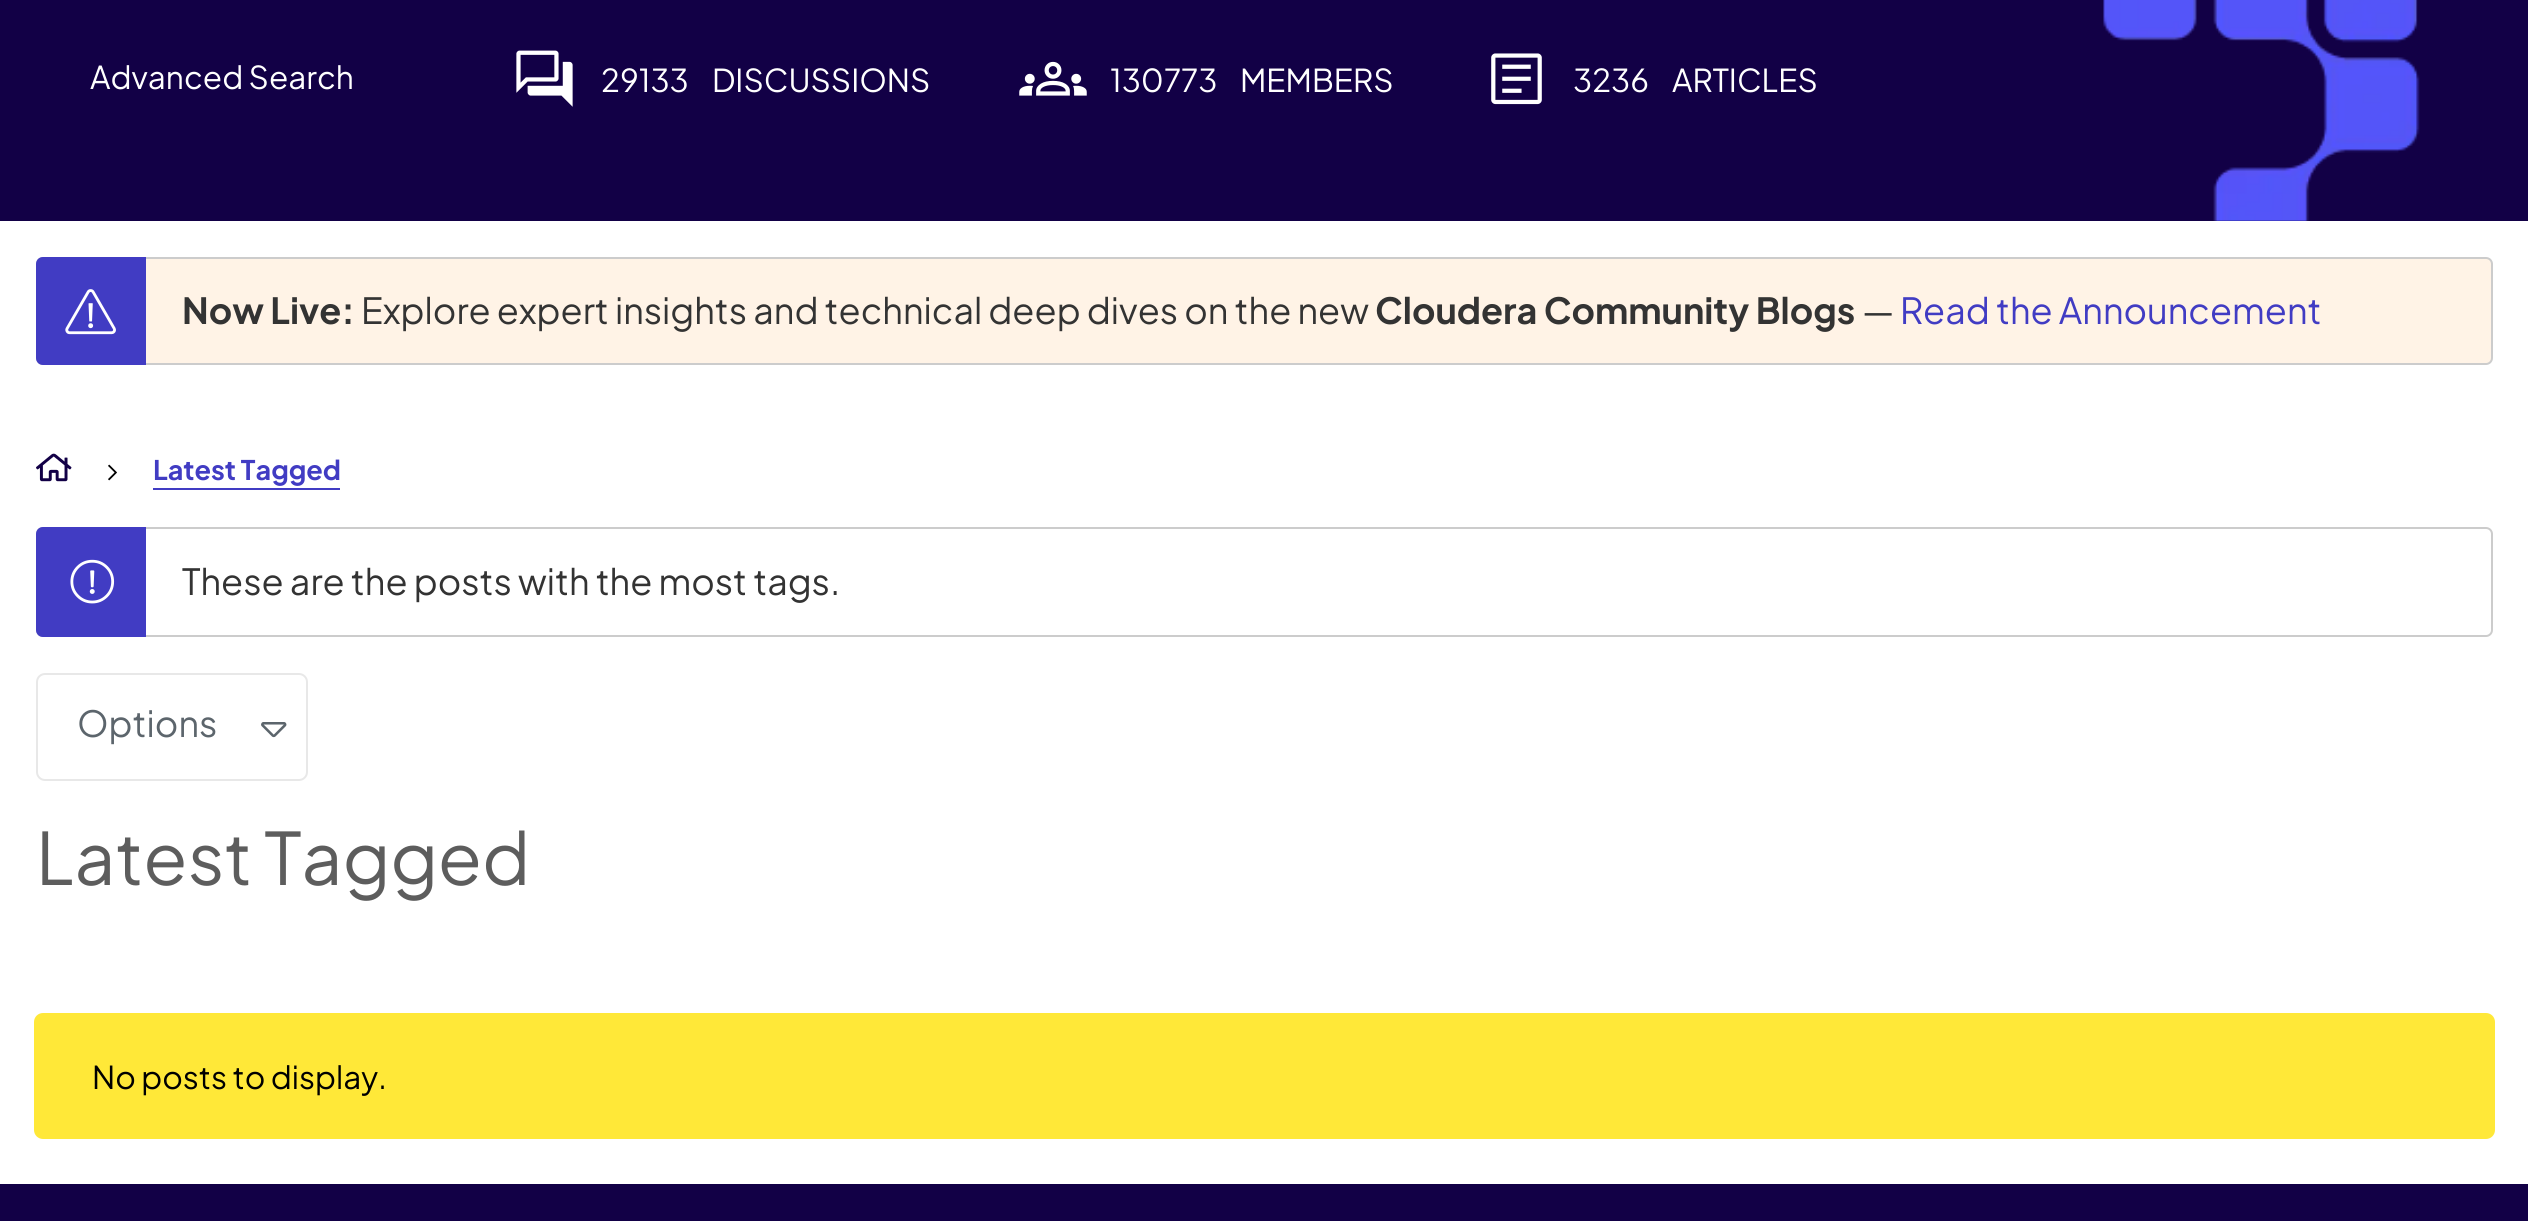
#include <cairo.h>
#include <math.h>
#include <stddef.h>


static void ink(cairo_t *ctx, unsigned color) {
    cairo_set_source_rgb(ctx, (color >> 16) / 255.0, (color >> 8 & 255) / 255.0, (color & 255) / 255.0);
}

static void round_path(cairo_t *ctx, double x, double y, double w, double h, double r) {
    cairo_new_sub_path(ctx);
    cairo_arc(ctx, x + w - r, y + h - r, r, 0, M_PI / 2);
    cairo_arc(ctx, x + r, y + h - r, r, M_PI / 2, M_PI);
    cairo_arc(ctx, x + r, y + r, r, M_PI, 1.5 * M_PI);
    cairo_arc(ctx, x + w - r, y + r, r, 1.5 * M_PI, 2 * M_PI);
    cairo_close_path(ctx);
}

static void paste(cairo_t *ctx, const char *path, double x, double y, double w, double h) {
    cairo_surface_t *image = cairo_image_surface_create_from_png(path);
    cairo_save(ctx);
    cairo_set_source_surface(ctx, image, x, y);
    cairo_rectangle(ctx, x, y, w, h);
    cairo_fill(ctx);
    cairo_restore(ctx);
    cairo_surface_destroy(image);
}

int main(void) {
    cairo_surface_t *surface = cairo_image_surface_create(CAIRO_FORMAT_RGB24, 2528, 1221);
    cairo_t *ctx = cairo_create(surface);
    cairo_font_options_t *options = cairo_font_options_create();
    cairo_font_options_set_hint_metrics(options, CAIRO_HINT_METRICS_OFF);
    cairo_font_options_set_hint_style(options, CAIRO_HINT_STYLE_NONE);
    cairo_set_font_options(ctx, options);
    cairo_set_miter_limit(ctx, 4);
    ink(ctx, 0xFFFFFF);
    cairo_paint(ctx);
    ink(ctx, 0x120046);
    cairo_rectangle(ctx, 0, 0, 2528, 221);
    cairo_fill(ctx);
    paste(ctx, "media/1.png", 2103, 0, 317, 221);
    cairo_select_font_face(ctx, "Plus Jakarta Sans", CAIRO_FONT_SLANT_NORMAL, CAIRO_FONT_WEIGHT_NORMAL);
    cairo_set_font_size(ctx, 31.5);
    ink(ctx, 0xFFFFFF);
    cairo_move_to(ctx, 90, 89);
    cairo_show_text(ctx, "Advanced Search");
    paste(ctx, "media/2.png", 516, 50, 57, 57);
    cairo_move_to(ctx, 601, 92);
    cairo_show_text(ctx, "29133");
    cairo_move_to(ctx, 712, 92);
    cairo_show_text(ctx, "DISCUSSIONS");
    paste(ctx, "media/3.png", 1019, 61, 68, 35);
    cairo_move_to(ctx, 1110, 92);
    cairo_show_text(ctx, "130773");
    cairo_move_to(ctx, 1240, 92);
    cairo_show_text(ctx, "MEMBERS");
    paste(ctx, "media/4.png", 1491, 53, 51, 52);
    cairo_move_to(ctx, 1573, 92);
    cairo_show_text(ctx, "3236");
    cairo_move_to(ctx, 1672, 92);
    cairo_show_text(ctx, "ARTICLES");
    ink(ctx, 0xFFF3E6);
    round_path(ctx, 37, 258, 2455, 106, 6);
    cairo_fill_preserve(ctx);
    ink(ctx, 0xCCCCCC);
    cairo_stroke(ctx);
    ink(ctx, 0x413CC3);
    cairo_new_path(ctx);
    cairo_move_to(ctx, 43, 257);
    cairo_line_to(ctx, 146, 257);
    cairo_line_to(ctx, 146, 365);
    cairo_line_to(ctx, 43, 365);
    cairo_curve_to(ctx, 39, 365, 36, 362, 36, 358);
    cairo_line_to(ctx, 36, 264);
    cairo_curve_to(ctx, 36, 260, 39, 257, 43, 257);
    cairo_close_path(ctx);
    cairo_fill(ctx);
    paste(ctx, "media/5.png", 65, 289, 51, 46);
    cairo_select_font_face(ctx, "Plus Jakarta Sans", CAIRO_FONT_SLANT_NORMAL, CAIRO_FONT_WEIGHT_BOLD);
    cairo_set_font_size(ctx, 36);
    ink(ctx, 0x333333);
    cairo_move_to(ctx, 182, 324);
    cairo_show_text(ctx, "Now Live:");
    cairo_select_font_face(ctx, "Plus Jakarta Sans", CAIRO_FONT_SLANT_NORMAL, CAIRO_FONT_WEIGHT_NORMAL);
    cairo_move_to(ctx, 361, 324);
    cairo_show_text(ctx, "Explore expert insights and technical deep dives on the new");
    cairo_select_font_face(ctx, "Plus Jakarta Sans", CAIRO_FONT_SLANT_NORMAL, CAIRO_FONT_WEIGHT_BOLD);
    cairo_move_to(ctx, 1375, 324);
    cairo_show_text(ctx, "Cloudera Community Blogs");
    cairo_select_font_face(ctx, "Plus Jakarta Sans", CAIRO_FONT_SLANT_NORMAL, CAIRO_FONT_WEIGHT_NORMAL);
    cairo_move_to(ctx, 1862, 324);
    cairo_show_text(ctx, "—");
    ink(ctx, 0x413CC3);
    cairo_move_to(ctx, 1900, 324);
    cairo_show_text(ctx, "Read the Announcement");
    paste(ctx, "media/6.png", 36, 453, 36, 29);
    paste(ctx, "media/7.png", 108, 464, 9, 17);
    cairo_select_font_face(ctx, "Plus Jakarta Sans", CAIRO_FONT_SLANT_NORMAL, CAIRO_FONT_WEIGHT_BOLD);
    cairo_set_font_size(ctx, 27);
    cairo_move_to(ctx, 153, 480);
    cairo_show_text(ctx, "Latest Tagged");
    cairo_rectangle(ctx, 153, 488, 187, 2);
    cairo_fill(ctx);
    round_path(ctx, 37, 528, 2455, 108, 6);
    ink(ctx, 0xCCCCCC);
    cairo_stroke(ctx);
    ink(ctx, 0x413CC3);
    cairo_new_path(ctx);
    cairo_move_to(ctx, 43, 527);
    cairo_line_to(ctx, 146, 527);
    cairo_line_to(ctx, 146, 637);
    cairo_line_to(ctx, 43, 637);
    cairo_curve_to(ctx, 39, 637, 36, 634, 36, 630);
    cairo_line_to(ctx, 36, 534);
    cairo_curve_to(ctx, 36, 530, 39, 527, 43, 527);
    cairo_close_path(ctx);
    cairo_fill(ctx);
    paste(ctx, "media/8.png", 70, 559, 45, 45);
    cairo_select_font_face(ctx, "Plus Jakarta Sans", CAIRO_FONT_SLANT_NORMAL, CAIRO_FONT_WEIGHT_NORMAL);
    cairo_set_font_size(ctx, 36);
    ink(ctx, 0x333333);
    cairo_move_to(ctx, 182, 595);
    cairo_show_text(ctx, "These are the posts with the most tags.");
    round_path(ctx, 37, 674, 270, 106, 8);
    ink(ctx, 0xE8E8E8);
    cairo_stroke(ctx);
    ink(ctx, 0x5C656C);
    cairo_move_to(ctx, 77, 737);
    cairo_show_text(ctx, "Options");
    paste(ctx, "media/9.png", 261, 722, 26, 16);
    cairo_set_font_size(ctx, 72);
    ink(ctx, 0x5D5D5D);
    cairo_move_to(ctx, 36, 885);
    cairo_show_text(ctx, "Latest Tagged");
    ink(ctx, 0xFFE838);
    round_path(ctx, 35, 1014, 2459, 124, 8);
    cairo_fill_preserve(ctx);
    cairo_stroke(ctx);
    cairo_set_font_size(ctx, 31.5);
    ink(ctx, 0x000000);
    cairo_move_to(ctx, 92, 1089);
    cairo_show_text(ctx, "No posts to display.");
    ink(ctx, 0x120046);
    cairo_rectangle(ctx, 0, 1184, 2528, 37);
    cairo_fill(ctx);
    cairo_surface_write_to_png(surface, "image.png");
    cairo_font_options_destroy(options);
    cairo_destroy(ctx);
    cairo_surface_destroy(surface);
    return 0;
}
